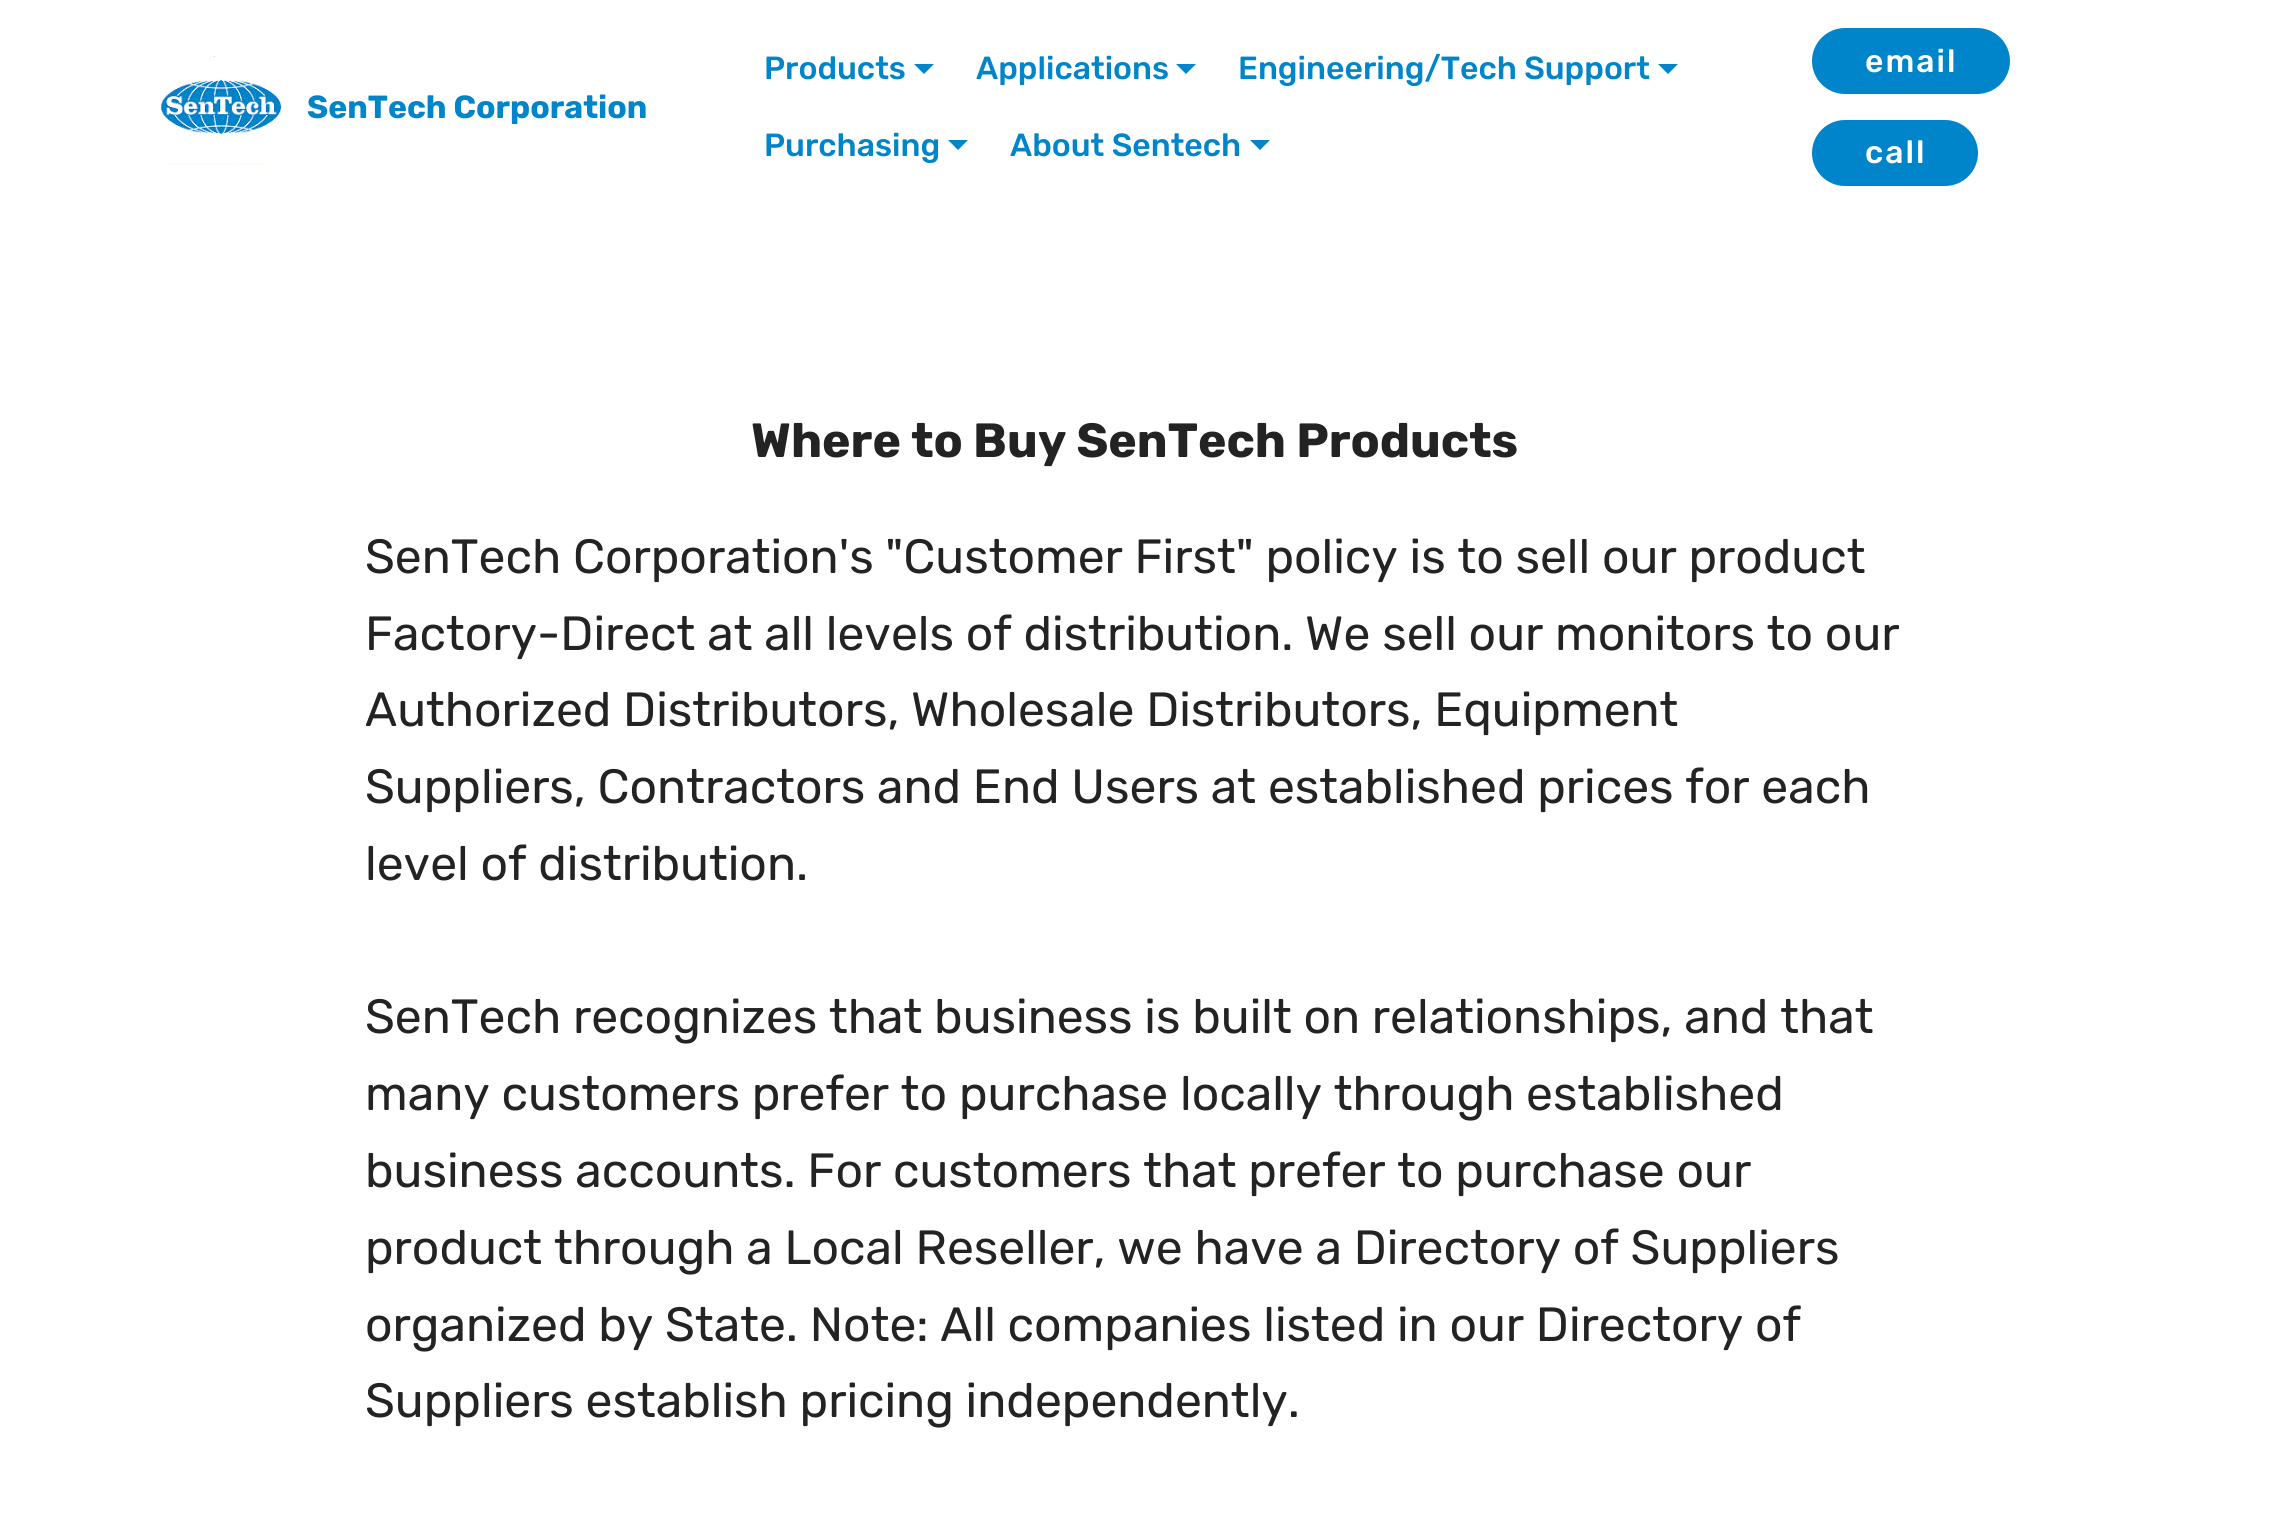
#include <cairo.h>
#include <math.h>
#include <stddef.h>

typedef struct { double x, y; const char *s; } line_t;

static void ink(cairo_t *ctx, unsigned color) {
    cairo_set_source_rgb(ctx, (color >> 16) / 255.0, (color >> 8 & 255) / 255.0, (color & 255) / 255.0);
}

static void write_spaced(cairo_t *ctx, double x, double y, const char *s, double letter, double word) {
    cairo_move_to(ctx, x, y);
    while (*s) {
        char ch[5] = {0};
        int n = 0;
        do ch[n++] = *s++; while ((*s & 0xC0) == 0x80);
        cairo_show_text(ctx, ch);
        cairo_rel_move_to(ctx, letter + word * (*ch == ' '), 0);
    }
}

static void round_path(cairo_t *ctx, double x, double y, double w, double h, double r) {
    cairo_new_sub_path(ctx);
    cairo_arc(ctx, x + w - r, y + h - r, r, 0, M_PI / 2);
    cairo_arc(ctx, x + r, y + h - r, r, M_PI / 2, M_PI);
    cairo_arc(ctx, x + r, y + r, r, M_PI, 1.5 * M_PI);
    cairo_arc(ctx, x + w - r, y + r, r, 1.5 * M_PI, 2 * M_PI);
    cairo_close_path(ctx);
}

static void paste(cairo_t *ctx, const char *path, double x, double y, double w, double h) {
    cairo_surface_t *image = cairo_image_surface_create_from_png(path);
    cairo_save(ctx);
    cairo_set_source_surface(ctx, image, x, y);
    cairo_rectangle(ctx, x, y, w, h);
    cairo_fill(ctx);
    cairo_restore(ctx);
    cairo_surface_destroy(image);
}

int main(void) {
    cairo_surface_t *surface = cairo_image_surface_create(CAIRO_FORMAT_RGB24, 2269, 1527);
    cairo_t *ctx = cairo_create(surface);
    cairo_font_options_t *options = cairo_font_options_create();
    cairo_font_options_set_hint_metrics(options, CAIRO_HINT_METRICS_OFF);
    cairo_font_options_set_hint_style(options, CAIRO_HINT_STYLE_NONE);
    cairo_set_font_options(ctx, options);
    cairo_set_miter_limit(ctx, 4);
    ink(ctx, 0xFFFFFF);
    cairo_paint(ctx);
    paste(ctx, "media/1.png", 161, 56, 121, 109);
    cairo_select_font_face(ctx, "Rubik", CAIRO_FONT_SLANT_NORMAL, CAIRO_FONT_WEIGHT_BOLD);
    cairo_set_font_size(ctx, 32);
    ink(ctx, 0x0085CA);
    cairo_move_to(ctx, 307, 118);
    cairo_show_text(ctx, "SenTech Corporation");
    cairo_select_font_face(ctx, "Rubik Medium", CAIRO_FONT_SLANT_NORMAL, CAIRO_FONT_WEIGHT_NORMAL);
    cairo_move_to(ctx, 764, 79);
    cairo_show_text(ctx, "Products");
    cairo_new_path(ctx);
    cairo_move_to(ctx, 914, 64);
    cairo_line_to(ctx, 934, 64);
    cairo_line_to(ctx, 924, 74);
    cairo_close_path(ctx);
    cairo_fill(ctx);
    cairo_move_to(ctx, 976, 79);
    cairo_show_text(ctx, "Applications");
    cairo_new_path(ctx);
    cairo_move_to(ctx, 1176, 64);
    cairo_line_to(ctx, 1196, 64);
    cairo_line_to(ctx, 1186, 74);
    cairo_close_path(ctx);
    cairo_fill(ctx);
    cairo_move_to(ctx, 1238, 79);
    cairo_show_text(ctx, "Engineering/Tech Support");
    cairo_new_path(ctx);
    cairo_move_to(ctx, 1658, 64);
    cairo_line_to(ctx, 1678, 64);
    cairo_line_to(ctx, 1668, 74);
    cairo_close_path(ctx);
    cairo_fill(ctx);
    cairo_move_to(ctx, 764, 156);
    cairo_show_text(ctx, "Purchasing");
    cairo_new_path(ctx);
    cairo_move_to(ctx, 948, 140);
    cairo_line_to(ctx, 968, 140);
    cairo_line_to(ctx, 958, 150);
    cairo_close_path(ctx);
    cairo_fill(ctx);
    cairo_move_to(ctx, 1010, 156);
    cairo_show_text(ctx, "About Sentech");
    cairo_new_path(ctx);
    cairo_move_to(ctx, 1250, 140);
    cairo_line_to(ctx, 1270, 140);
    cairo_line_to(ctx, 1260, 150);
    cairo_close_path(ctx);
    cairo_fill(ctx);
    round_path(ctx, 1814, 30, 194, 62, 31);
    cairo_fill_preserve(ctx);
    cairo_set_line_width(ctx, 4);
    cairo_stroke(ctx);
    ink(ctx, 0xFFFFFF);
    write_spaced(ctx, 1865, 72, "email", 2, 0);
    ink(ctx, 0x0085CA);
    round_path(ctx, 1814, 122, 162, 62, 31);
    cairo_fill_preserve(ctx);
    cairo_stroke(ctx);
    ink(ctx, 0xFFFFFF);
    write_spaced(ctx, 1865, 163, "call", 2, 0);
    cairo_select_font_face(ctx, "Rubik", CAIRO_FONT_SLANT_NORMAL, CAIRO_FONT_WEIGHT_BOLD);
    cairo_set_font_size(ctx, 48);
    ink(ctx, 0x232323);
    cairo_move_to(ctx, 751, 457);
    cairo_show_text(ctx, "Where to Buy SenTech Products");
    cairo_select_font_face(ctx, "Rubik", CAIRO_FONT_SLANT_NORMAL, CAIRO_FONT_WEIGHT_NORMAL);
    {
        static const line_t items[] = {
            {365, 573, "SenTech Corporation's \"Customer First\" policy is to sell our product"},
            {365, 650, "Factory-Direct at all levels of distribution. We sell our monitors to our"},
            {365, 726, "Authorized Distributors, Wholesale Distributors, Equipment"},
            {365, 803, "Suppliers, Contractors and End Users at established prices for each"},
            {365, 880, "level of distribution."},
            {365, 1033, "SenTech recognizes that business is built on relationships, and that"},
            {365, 1110, "many customers prefer to purchase locally through established"},
            {365, 1187, "business accounts. For customers that prefer to purchase our"},
            {365, 1264, "product through a Local Reseller, we have a Directory of Suppliers"},
            {365, 1341, "organized by State. Note: All companies listed in our Directory of"},
            {365, 1417, "Suppliers establish pricing independently."},
        };
        for (size_t i = 0; i < sizeof items / sizeof *items; i++) {
            cairo_move_to(ctx, items[i].x, items[i].y);
            cairo_show_text(ctx, items[i].s);
        }
    }
    cairo_surface_write_to_png(surface, "image.png");
    cairo_font_options_destroy(options);
    cairo_destroy(ctx);
    cairo_surface_destroy(surface);
    return 0;
}
